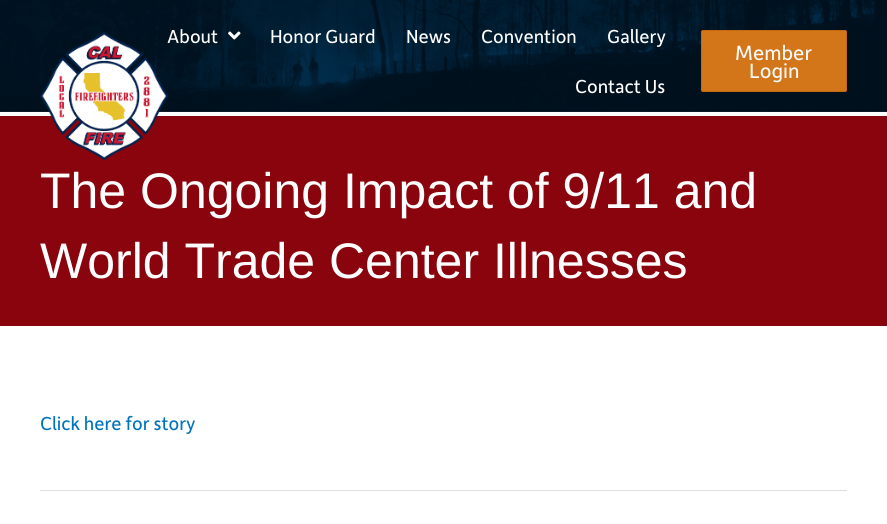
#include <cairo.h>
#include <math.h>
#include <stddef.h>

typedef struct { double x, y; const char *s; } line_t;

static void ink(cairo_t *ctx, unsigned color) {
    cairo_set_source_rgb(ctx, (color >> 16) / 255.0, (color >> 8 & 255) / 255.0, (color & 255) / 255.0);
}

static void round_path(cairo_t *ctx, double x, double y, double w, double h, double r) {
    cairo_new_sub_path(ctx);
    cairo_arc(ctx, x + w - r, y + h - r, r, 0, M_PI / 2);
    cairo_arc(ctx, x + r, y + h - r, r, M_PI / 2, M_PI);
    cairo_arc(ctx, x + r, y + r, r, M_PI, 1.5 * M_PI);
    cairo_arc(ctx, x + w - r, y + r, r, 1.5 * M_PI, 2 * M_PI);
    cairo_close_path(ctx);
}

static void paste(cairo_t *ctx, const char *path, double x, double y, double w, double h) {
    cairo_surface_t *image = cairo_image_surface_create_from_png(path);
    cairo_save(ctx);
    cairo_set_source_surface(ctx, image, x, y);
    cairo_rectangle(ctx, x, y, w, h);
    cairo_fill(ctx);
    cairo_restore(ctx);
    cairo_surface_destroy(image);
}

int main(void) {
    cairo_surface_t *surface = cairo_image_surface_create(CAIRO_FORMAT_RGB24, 887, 524);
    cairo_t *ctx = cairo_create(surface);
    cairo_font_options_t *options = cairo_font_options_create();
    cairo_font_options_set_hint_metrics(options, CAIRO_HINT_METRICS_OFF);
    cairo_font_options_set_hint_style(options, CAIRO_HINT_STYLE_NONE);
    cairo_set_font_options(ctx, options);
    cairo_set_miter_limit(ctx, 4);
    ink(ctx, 0xFFFFFF);
    cairo_paint(ctx);
    paste(ctx, "media/1.png", 0, 0, 887, 112);
    ink(ctx, 0x8A040D);
    cairo_rectangle(ctx, 0, 116, 887, 210);
    cairo_fill(ctx);
    paste(ctx, "media/2.png", 40, 32, 129, 128);
    cairo_select_font_face(ctx, "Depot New", CAIRO_FONT_SLANT_NORMAL, CAIRO_FONT_WEIGHT_NORMAL);
    cairo_set_font_size(ctx, 20);
    ink(ctx, 0xFFFFFF);
    cairo_move_to(ctx, 167, 43);
    cairo_show_text(ctx, "About");
    paste(ctx, "media/3.png", 228, 31, 13, 9);
    {
        static const line_t items[] = {
            {270, 43, "Honor Guard"},
            {406, 43, "News"},
            {481, 43, "Convention"},
            {607, 43, "Gallery"},
            {575, 93, "Contact Us"},
        };
        for (size_t i = 0; i < sizeof items / sizeof *items; i++) {
            cairo_move_to(ctx, items[i].x, items[i].y);
            cairo_show_text(ctx, items[i].s);
        }
    }
    ink(ctx, 0xD37619);
    round_path(ctx, 701.5, 30.5, 145, 61, 1.5);
    cairo_fill_preserve(ctx);
    ink(ctx, 0xC76A0D);
    cairo_set_line_width(ctx, 1);
    cairo_stroke(ctx);
    cairo_set_font_size(ctx, 22);
    ink(ctx, 0xF9F9F9);
    cairo_move_to(ctx, 735, 60);
    cairo_show_text(ctx, "Member");
    cairo_move_to(ctx, 749, 78);
    cairo_show_text(ctx, "Login");
    cairo_select_font_face(ctx, "Liberation Sans", CAIRO_FONT_SLANT_NORMAL, CAIRO_FONT_WEIGHT_NORMAL);
    cairo_set_font_size(ctx, 50);
    ink(ctx, 0xFFFFFF);
    cairo_move_to(ctx, 40, 208);
    cairo_show_text(ctx, "The Ongoing Impact of 9/11 and");
    cairo_move_to(ctx, 40, 278);
    cairo_show_text(ctx, "World Trade Center Illnesses");
    cairo_select_font_face(ctx, "Depot New", CAIRO_FONT_SLANT_NORMAL, CAIRO_FONT_WEIGHT_NORMAL);
    cairo_set_font_size(ctx, 20);
    ink(ctx, 0x0274BE);
    cairo_move_to(ctx, 40, 430);
    cairo_show_text(ctx, "Click here for story");
    ink(ctx, 0xDDDDDD);
    cairo_rectangle(ctx, 40, 490, 807, 1);
    cairo_fill(ctx);
    cairo_surface_write_to_png(surface, "image.png");
    cairo_font_options_destroy(options);
    cairo_destroy(ctx);
    cairo_surface_destroy(surface);
    return 0;
}
